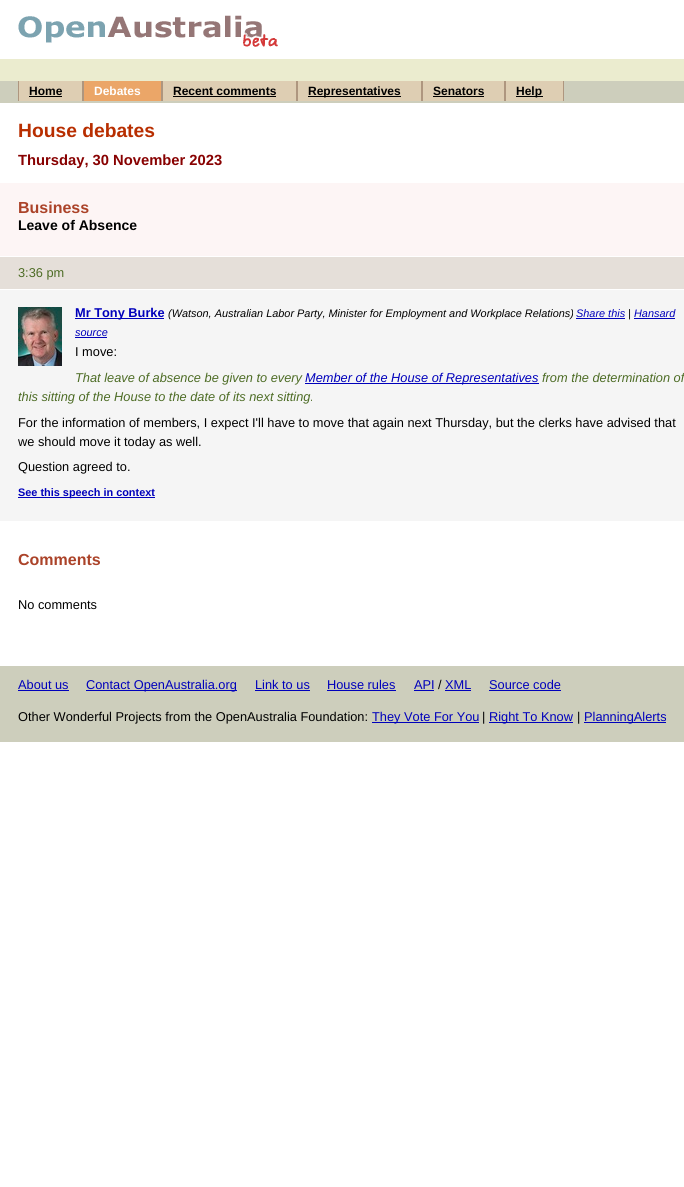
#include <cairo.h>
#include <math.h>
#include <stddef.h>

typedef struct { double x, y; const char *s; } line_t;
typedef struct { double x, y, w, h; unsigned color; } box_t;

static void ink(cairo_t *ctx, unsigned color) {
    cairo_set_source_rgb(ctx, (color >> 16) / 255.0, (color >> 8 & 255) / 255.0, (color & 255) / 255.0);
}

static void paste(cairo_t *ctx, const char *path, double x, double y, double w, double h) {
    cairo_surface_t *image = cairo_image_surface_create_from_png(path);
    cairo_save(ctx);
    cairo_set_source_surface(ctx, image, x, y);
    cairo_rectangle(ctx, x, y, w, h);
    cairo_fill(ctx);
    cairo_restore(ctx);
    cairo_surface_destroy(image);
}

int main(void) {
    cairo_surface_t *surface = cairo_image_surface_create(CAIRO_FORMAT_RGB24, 684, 1187);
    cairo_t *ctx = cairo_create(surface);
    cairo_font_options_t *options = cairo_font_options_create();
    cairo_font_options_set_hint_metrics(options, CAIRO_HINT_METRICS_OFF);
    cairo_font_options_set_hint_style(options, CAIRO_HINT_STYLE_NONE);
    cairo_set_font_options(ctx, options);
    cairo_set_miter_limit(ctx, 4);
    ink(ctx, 0xFFFFFF);
    cairo_paint(ctx);
    paste(ctx, "media/1.png", 18, 15, 260, 32);
    {
        static const box_t items[] = {
            {0, 59, 684, 22, 0xEBECCF},
            {0, 81, 684, 22, 0xCDCEBC},
            {19, 81, 63, 20, 0xDECEB3},
            {82, 81, 2, 20, 0xAE967F},
            {18, 81, 1, 20, 0xAE967F},
        };
        for (size_t i = 0; i < sizeof items / sizeof *items; i++) {
            ink(ctx, items[i].color);
            cairo_rectangle(ctx, items[i].x, items[i].y, items[i].w, items[i].h);
            cairo_fill(ctx);
        }
    }
    cairo_select_font_face(ctx, "Liberation Sans", CAIRO_FONT_SLANT_NORMAL, CAIRO_FONT_WEIGHT_BOLD);
    cairo_set_font_size(ctx, 12);
    ink(ctx, 0x000000);
    cairo_move_to(ctx, 29, 95);
    cairo_show_text(ctx, "Home");
    {
        static const box_t items[] = {
            {29, 96, 33, 1, 0x000000},
            {84, 81, 77, 20, 0xEBA668},
            {161, 81, 2, 20, 0xAE967F},
        };
        for (size_t i = 0; i < sizeof items / sizeof *items; i++) {
            ink(ctx, items[i].color);
            cairo_rectangle(ctx, items[i].x, items[i].y, items[i].w, items[i].h);
            cairo_fill(ctx);
        }
    }
    ink(ctx, 0xFFFFFF);
    cairo_move_to(ctx, 94, 95);
    cairo_show_text(ctx, "Debates");
    ink(ctx, 0xDECEB3);
    cairo_rectangle(ctx, 163, 81, 133, 20);
    cairo_fill(ctx);
    ink(ctx, 0xAE967F);
    cairo_rectangle(ctx, 296, 81, 2, 20);
    cairo_fill(ctx);
    ink(ctx, 0x000000);
    cairo_move_to(ctx, 173, 95);
    cairo_show_text(ctx, "Recent comments");
    {
        static const box_t items[] = {
            {173, 96, 103, 1, 0x000000},
            {298, 81, 123, 20, 0xDECEB3},
            {421, 81, 2, 20, 0xAE967F},
            {308, 96, 93, 1, 0x000000},
        };
        for (size_t i = 0; i < sizeof items / sizeof *items; i++) {
            ink(ctx, items[i].color);
            cairo_rectangle(ctx, items[i].x, items[i].y, items[i].w, items[i].h);
            cairo_fill(ctx);
        }
    }
    cairo_move_to(ctx, 308, 95);
    cairo_show_text(ctx, "Representatives");
    ink(ctx, 0xDECEB3);
    cairo_rectangle(ctx, 423, 81, 81, 20);
    cairo_fill(ctx);
    ink(ctx, 0xAE967F);
    cairo_rectangle(ctx, 504, 81, 2, 20);
    cairo_fill(ctx);
    ink(ctx, 0x000000);
    cairo_move_to(ctx, 433, 95);
    cairo_show_text(ctx, "Senators");
    {
        static const box_t items[] = {
            {433, 96, 51, 1, 0x000000},
            {506, 81, 57, 20, 0xDECEB3},
            {563, 81, 1, 20, 0xAE967F},
            {516, 96, 27, 1, 0x000000},
        };
        for (size_t i = 0; i < sizeof items / sizeof *items; i++) {
            ink(ctx, items[i].color);
            cairo_rectangle(ctx, items[i].x, items[i].y, items[i].w, items[i].h);
            cairo_fill(ctx);
        }
    }
    cairo_move_to(ctx, 516, 95);
    cairo_show_text(ctx, "Help");
    cairo_set_font_size(ctx, 19.25);
    ink(ctx, 0xB82E00);
    cairo_move_to(ctx, 18, 137);
    cairo_show_text(ctx, "House debates");
    cairo_set_font_size(ctx, 14.75);
    ink(ctx, 0x880101);
    cairo_move_to(ctx, 18, 165);
    cairo_show_text(ctx, "Thursday, 30 November 2023");
    ink(ctx, 0xFDF5F5);
    cairo_rectangle(ctx, 0, 183, 684, 73);
    cairo_fill(ctx);
    cairo_set_font_size(ctx, 16);
    ink(ctx, 0xAB4329);
    cairo_move_to(ctx, 18, 213);
    cairo_show_text(ctx, "Business");
    cairo_set_font_size(ctx, 14);
    ink(ctx, 0x000000);
    cairo_move_to(ctx, 18, 230);
    cairo_show_text(ctx, "Leave of Absence");
    ink(ctx, 0xE5DFD9);
    cairo_rectangle(ctx, 0, 257, 684, 32);
    cairo_fill(ctx);
    cairo_select_font_face(ctx, "Liberation Sans", CAIRO_FONT_SLANT_NORMAL, CAIRO_FONT_WEIGHT_NORMAL);
    cairo_set_font_size(ctx, 12.8);
    ink(ctx, 0x4D6C25);
    cairo_move_to(ctx, 18, 277);
    cairo_show_text(ctx, "3:36 pm");
    ink(ctx, 0xF5F5F5);
    cairo_rectangle(ctx, 0, 290, 684, 231);
    cairo_fill(ctx);
    paste(ctx, "media/2.png", 18, 307, 44, 59);
    ink(ctx, 0x0000BB);
    cairo_rectangle(ctx, 75, 318, 89, 1);
    cairo_fill(ctx);
    cairo_select_font_face(ctx, "Liberation Sans", CAIRO_FONT_SLANT_NORMAL, CAIRO_FONT_WEIGHT_BOLD);
    cairo_move_to(ctx, 75, 317);
    cairo_show_text(ctx, "Mr Tony Burke");
    cairo_select_font_face(ctx, "Liberation Sans", CAIRO_FONT_SLANT_ITALIC, CAIRO_FONT_WEIGHT_NORMAL);
    cairo_set_font_size(ctx, 10.9);
    ink(ctx, 0x000000);
    cairo_move_to(ctx, 168, 317);
    cairo_show_text(ctx, "(Watson, Australian Labor Party, Minister for Employment and Workplace Relations)");
    ink(ctx, 0x0000BB);
    cairo_move_to(ctx, 576, 317);
    cairo_show_text(ctx, "Share this");
    cairo_rectangle(ctx, 576, 318, 49, 1);
    cairo_fill(ctx);
    ink(ctx, 0x000000);
    cairo_move_to(ctx, 628, 317);
    cairo_show_text(ctx, "|");
    ink(ctx, 0x0000BB);
    cairo_move_to(ctx, 634, 317);
    cairo_show_text(ctx, "Hansard");
    cairo_rectangle(ctx, 634, 318, 41, 1);
    cairo_fill(ctx);
    cairo_move_to(ctx, 75, 336);
    cairo_show_text(ctx, "source");
    cairo_rectangle(ctx, 75, 337, 32, 1);
    cairo_fill(ctx);
    cairo_select_font_face(ctx, "Liberation Sans", CAIRO_FONT_SLANT_NORMAL, CAIRO_FONT_WEIGHT_NORMAL);
    cairo_set_font_size(ctx, 12.8);
    ink(ctx, 0x000000);
    cairo_move_to(ctx, 75, 356);
    cairo_show_text(ctx, "I move:");
    cairo_select_font_face(ctx, "Liberation Sans", CAIRO_FONT_SLANT_ITALIC, CAIRO_FONT_WEIGHT_NORMAL);
    ink(ctx, 0x4D6C25);
    cairo_move_to(ctx, 75, 382);
    cairo_show_text(ctx, "That leave of absence be given to every");
    ink(ctx, 0x0000BB);
    cairo_rectangle(ctx, 305, 383, 234, 1);
    cairo_fill(ctx);
    cairo_move_to(ctx, 305, 382);
    cairo_show_text(ctx, "Member of the House of Representatives");
    ink(ctx, 0x4D6C25);
    cairo_move_to(ctx, 542, 382);
    cairo_show_text(ctx, "from the determination of");
    cairo_move_to(ctx, 18, 401);
    cairo_show_text(ctx, "this sitting of the House to the date of its next sitting.");
    cairo_select_font_face(ctx, "Liberation Sans", CAIRO_FONT_SLANT_NORMAL, CAIRO_FONT_WEIGHT_NORMAL);
    ink(ctx, 0x000000);
    {
        static const line_t items[] = {
            {18, 427, "For the information of members, I expect I'll have to move that again next Thursday, but the clerks have advised that"},
            {18, 446, "we should move it today as well."},
            {18, 471, "Question agreed to."},
        };
        for (size_t i = 0; i < sizeof items / sizeof *items; i++) {
            cairo_move_to(ctx, items[i].x, items[i].y);
            cairo_show_text(ctx, items[i].s);
        }
    }
    ink(ctx, 0x0000BB);
    cairo_rectangle(ctx, 18, 497, 137, 1);
    cairo_fill(ctx);
    cairo_select_font_face(ctx, "Liberation Sans", CAIRO_FONT_SLANT_NORMAL, CAIRO_FONT_WEIGHT_BOLD);
    cairo_set_font_size(ctx, 10.9);
    cairo_move_to(ctx, 18, 496);
    cairo_show_text(ctx, "See this speech in context");
    cairo_set_font_size(ctx, 16);
    ink(ctx, 0xAB4329);
    cairo_move_to(ctx, 18, 565);
    cairo_show_text(ctx, "Comments");
    cairo_select_font_face(ctx, "Liberation Sans", CAIRO_FONT_SLANT_NORMAL, CAIRO_FONT_WEIGHT_NORMAL);
    cairo_set_font_size(ctx, 12.8);
    ink(ctx, 0x000000);
    cairo_move_to(ctx, 18, 609);
    cairo_show_text(ctx, "No comments");
    ink(ctx, 0xCDCEBC);
    cairo_rectangle(ctx, 0, 666, 684, 76);
    cairo_fill(ctx);
    ink(ctx, 0x0000BB);
    cairo_move_to(ctx, 18, 689);
    cairo_show_text(ctx, "About us");
    cairo_rectangle(ctx, 18, 690, 51, 1);
    cairo_fill(ctx);
    cairo_rectangle(ctx, 86, 690, 151, 1);
    cairo_fill(ctx);
    cairo_move_to(ctx, 86, 689);
    cairo_show_text(ctx, "Contact OpenAustralia.org");
    cairo_move_to(ctx, 255, 689);
    cairo_show_text(ctx, "Link to us");
    cairo_rectangle(ctx, 255, 690, 55, 1);
    cairo_fill(ctx);
    cairo_move_to(ctx, 327, 689);
    cairo_show_text(ctx, "House rules");
    cairo_rectangle(ctx, 327, 690, 69, 1);
    cairo_fill(ctx);
    cairo_move_to(ctx, 414, 689);
    cairo_show_text(ctx, "API");
    cairo_rectangle(ctx, 414, 690, 20, 1);
    cairo_fill(ctx);
    ink(ctx, 0x000000);
    cairo_move_to(ctx, 438, 689);
    cairo_show_text(ctx, "/");
    ink(ctx, 0x0000BB);
    cairo_move_to(ctx, 445, 689);
    cairo_show_text(ctx, "XML");
    cairo_rectangle(ctx, 445, 690, 26, 1);
    cairo_fill(ctx);
    cairo_move_to(ctx, 489, 689);
    cairo_show_text(ctx, "Source code");
    cairo_rectangle(ctx, 489, 690, 72, 1);
    cairo_fill(ctx);
    ink(ctx, 0x000000);
    cairo_move_to(ctx, 18, 721);
    cairo_show_text(ctx, "Other Wonderful Projects from the OpenAustralia Foundation:");
    ink(ctx, 0x0000BB);
    cairo_rectangle(ctx, 372, 722, 107, 1);
    cairo_fill(ctx);
    cairo_move_to(ctx, 372, 721);
    cairo_show_text(ctx, "They Vote For You");
    ink(ctx, 0x000000);
    cairo_move_to(ctx, 482, 721);
    cairo_show_text(ctx, "|");
    ink(ctx, 0x0000BB);
    cairo_rectangle(ctx, 489, 722, 84, 1);
    cairo_fill(ctx);
    cairo_move_to(ctx, 489, 721);
    cairo_show_text(ctx, "Right To Know");
    ink(ctx, 0x000000);
    cairo_move_to(ctx, 577, 721);
    cairo_show_text(ctx, "|");
    ink(ctx, 0x0000BB);
    cairo_rectangle(ctx, 584, 722, 82, 1);
    cairo_fill(ctx);
    cairo_move_to(ctx, 584, 721);
    cairo_show_text(ctx, "PlanningAlerts");
    cairo_surface_write_to_png(surface, "image.png");
    cairo_font_options_destroy(options);
    cairo_destroy(ctx);
    cairo_surface_destroy(surface);
    return 0;
}
